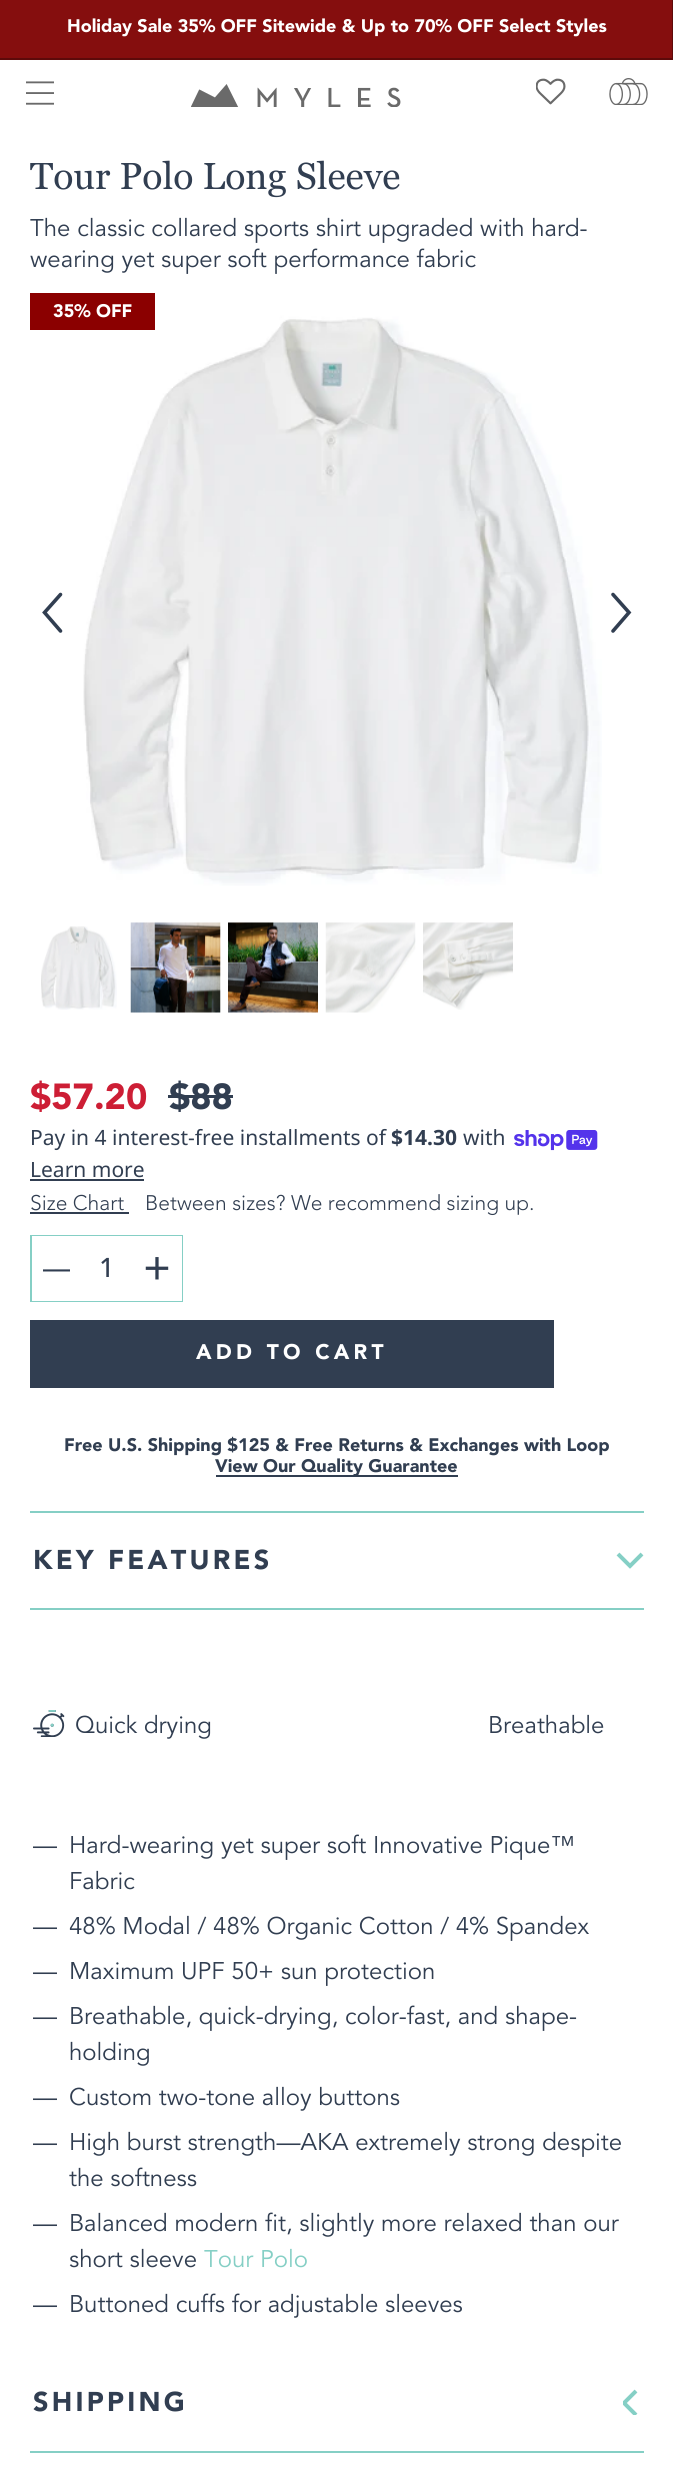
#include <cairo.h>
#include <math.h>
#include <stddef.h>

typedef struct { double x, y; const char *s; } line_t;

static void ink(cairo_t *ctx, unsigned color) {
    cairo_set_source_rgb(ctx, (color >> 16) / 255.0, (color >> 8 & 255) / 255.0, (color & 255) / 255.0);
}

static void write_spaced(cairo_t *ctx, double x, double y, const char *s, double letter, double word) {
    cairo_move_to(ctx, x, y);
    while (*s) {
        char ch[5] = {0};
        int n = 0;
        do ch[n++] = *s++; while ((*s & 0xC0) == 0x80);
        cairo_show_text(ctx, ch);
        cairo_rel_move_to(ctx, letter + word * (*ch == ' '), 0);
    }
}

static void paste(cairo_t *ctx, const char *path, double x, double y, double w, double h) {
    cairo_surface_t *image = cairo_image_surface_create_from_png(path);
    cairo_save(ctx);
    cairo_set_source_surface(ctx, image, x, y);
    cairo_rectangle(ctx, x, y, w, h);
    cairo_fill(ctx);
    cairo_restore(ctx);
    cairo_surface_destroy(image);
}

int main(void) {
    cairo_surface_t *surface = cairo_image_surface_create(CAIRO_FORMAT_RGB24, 673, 2467);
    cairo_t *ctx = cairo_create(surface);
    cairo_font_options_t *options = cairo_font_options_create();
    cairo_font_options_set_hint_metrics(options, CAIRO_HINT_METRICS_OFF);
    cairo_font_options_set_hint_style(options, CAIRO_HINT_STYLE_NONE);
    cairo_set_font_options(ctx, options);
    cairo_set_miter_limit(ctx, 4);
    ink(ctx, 0xFFFFFF);
    cairo_paint(ctx);
    ink(ctx, 0x850E0E);
    cairo_rectangle(ctx, 0, 0, 672, 58);
    cairo_fill(ctx);
    cairo_save(ctx);
    cairo_rectangle(ctx, 0, 0, 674, 60);
    cairo_clip(ctx);
    ink(ctx, 0x5D0A0A);
    cairo_set_fill_rule(ctx, CAIRO_FILL_RULE_EVEN_ODD);
    cairo_new_path(ctx);
    cairo_move_to(ctx, -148, -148);
    cairo_line_to(ctx, 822, -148);
    cairo_line_to(ctx, 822, 208);
    cairo_line_to(ctx, -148, 208);
    cairo_close_path(ctx);
    cairo_move_to(ctx, -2, -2);
    cairo_line_to(ctx, 672, -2);
    cairo_line_to(ctx, 672, 58);
    cairo_line_to(ctx, -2, 58);
    cairo_close_path(ctx);
    cairo_fill(ctx);
    cairo_restore(ctx);
    cairo_select_font_face(ctx, "Avenir Black", CAIRO_FONT_SLANT_NORMAL, CAIRO_FONT_WEIGHT_NORMAL);
    cairo_set_font_size(ctx, 18);
    ink(ctx, 0xFFFFFF);
    cairo_move_to(ctx, 67, 32);
    cairo_show_text(ctx, "Holiday Sale 35% OFF Sitewide & Up to 70% OFF Select Styles");
    paste(ctx, "media/1.png", 26, 81, 28, 24);
    paste(ctx, "media/2.png", 191, 84, 210, 23);
    paste(ctx, "media/3.png", 536, 78, 30, 27);
    paste(ctx, "media/4.png", 609, 78, 39, 27);
    cairo_select_font_face(ctx, "Georgia", CAIRO_FONT_SLANT_NORMAL, CAIRO_FONT_WEIGHT_NORMAL);
    cairo_set_font_size(ctx, 37.5);
    ink(ctx, 0x313E51);
    cairo_move_to(ctx, 30, 189);
    cairo_show_text(ctx, "Tour Polo Long Sleeve");
    cairo_select_font_face(ctx, "Avenir", CAIRO_FONT_SLANT_NORMAL, CAIRO_FONT_WEIGHT_NORMAL);
    cairo_set_font_size(ctx, 24);
    cairo_move_to(ctx, 30, 236);
    cairo_show_text(ctx, "The classic collared sports shirt upgraded with hard-");
    cairo_move_to(ctx, 30, 267);
    cairo_show_text(ctx, "wearing yet super soft performance fabric");
    paste(ctx, "media/5.png", 83, 292, 519, 594);
    ink(ctx, 0x8B0000);
    cairo_rectangle(ctx, 30, 293, 125, 37);
    cairo_fill(ctx);
    cairo_select_font_face(ctx, "Avenir Black", CAIRO_FONT_SLANT_NORMAL, CAIRO_FONT_WEIGHT_NORMAL);
    cairo_set_font_size(ctx, 18);
    ink(ctx, 0xFFFFFF);
    cairo_move_to(ctx, 53, 317);
    cairo_show_text(ctx, "35% OFF");
    cairo_new_path(ctx);
    cairo_move_to(ctx, 60.5, 631);
    cairo_line_to(ctx, 44.5, 612.5);
    cairo_line_to(ctx, 60.5, 594.5);
    ink(ctx, 0x313E51);
    cairo_set_line_width(ctx, 3.6);
    cairo_set_line_cap(ctx, CAIRO_LINE_CAP_ROUND);
    cairo_stroke(ctx);
    cairo_new_path(ctx);
    cairo_move_to(ctx, 613, 631);
    cairo_line_to(ctx, 629, 612.5);
    cairo_line_to(ctx, 613, 594.5);
    cairo_stroke(ctx);
    paste(ctx, "media/6.png", 41, 926, 76, 84);
    paste(ctx, "media/7.png", 130, 922, 91, 91);
    paste(ctx, "media/8.png", 228, 922, 90, 91);
    paste(ctx, "media/9.png", 325, 922, 91, 91);
    paste(ctx, "media/10.png", 423, 922, 90, 88);
    cairo_set_font_size(ctx, 36);
    ink(ctx, 0xCD1E35);
    cairo_move_to(ctx, 30, 1109);
    cairo_show_text(ctx, "$57.20");
    ink(ctx, 0x313E51);
    cairo_move_to(ctx, 169, 1109);
    cairo_show_text(ctx, "$88");
    cairo_rectangle(ctx, 168, 1095, 65, 3);
    cairo_fill(ctx);
    cairo_select_font_face(ctx, "Noto Sans", CAIRO_FONT_SLANT_NORMAL, CAIRO_FONT_WEIGHT_NORMAL);
    cairo_set_font_size(ctx, 21);
    cairo_move_to(ctx, 30, 1145);
    cairo_show_text(ctx, "Pay in 4 interest-free installments of");
    cairo_select_font_face(ctx, "Noto Sans", CAIRO_FONT_SLANT_NORMAL, CAIRO_FONT_WEIGHT_BOLD);
    cairo_move_to(ctx, 391, 1145);
    cairo_show_text(ctx, "$14.30");
    cairo_select_font_face(ctx, "Noto Sans", CAIRO_FONT_SLANT_NORMAL, CAIRO_FONT_WEIGHT_NORMAL);
    cairo_move_to(ctx, 463, 1145);
    cairo_show_text(ctx, "with");
    paste(ctx, "media/11.png", 514, 1130, 84, 21);
    cairo_move_to(ctx, 30, 1177);
    cairo_show_text(ctx, "Learn more");
    cairo_rectangle(ctx, 30, 1179, 114, 2);
    cairo_fill(ctx);
    cairo_select_font_face(ctx, "Avenir Light", CAIRO_FONT_SLANT_NORMAL, CAIRO_FONT_WEIGHT_NORMAL);
    cairo_move_to(ctx, 30, 1210);
    cairo_show_text(ctx, "Size Chart");
    cairo_rectangle(ctx, 30, 1212, 99, 2);
    cairo_fill(ctx);
    cairo_move_to(ctx, 145, 1210);
    cairo_show_text(ctx, "Between sizes? We recommend sizing up.");
    cairo_rectangle(ctx, 31, 1236, 151, 65);
    ink(ctx, 0x85CFC5);
    cairo_set_line_width(ctx, 2);
    cairo_set_line_cap(ctx, CAIRO_LINE_CAP_BUTT);
    cairo_stroke(ctx);
    ink(ctx, 0xFFFFFF);
    cairo_rectangle(ctx, 32, 1236, 150, 65);
    cairo_fill(ctx);
    cairo_select_font_face(ctx, "Avenir Medium", CAIRO_FONT_SLANT_NORMAL, CAIRO_FONT_WEIGHT_NORMAL);
    cairo_set_font_size(ctx, 27);
    ink(ctx, 0x313E51);
    cairo_move_to(ctx, 43, 1277);
    cairo_show_text(ctx, "—");
    cairo_move_to(ctx, 99, 1277);
    cairo_show_text(ctx, "1");
    cairo_set_font_size(ctx, 42);
    cairo_move_to(ctx, 143, 1281);
    cairo_show_text(ctx, "+");
    cairo_rectangle(ctx, 30, 1320, 524, 68);
    cairo_fill(ctx);
    cairo_select_font_face(ctx, "Avenir Black", CAIRO_FONT_SLANT_NORMAL, CAIRO_FONT_WEIGHT_NORMAL);
    cairo_set_font_size(ctx, 21);
    ink(ctx, 0xFFFFFF);
    write_spaced(ctx, 196, 1359, "ADD TO CART", 4.25, 0);
    cairo_set_font_size(ctx, 18);
    ink(ctx, 0x313E51);
    cairo_move_to(ctx, 64, 1451);
    cairo_show_text(ctx, "Free U.S. Shipping $125 & Free Returns & Exchanges with Loop");
    cairo_rectangle(ctx, 216, 1475, 242, 2);
    cairo_fill(ctx);
    cairo_move_to(ctx, 215, 1472);
    cairo_show_text(ctx, "View Our Quality Guarantee");
    ink(ctx, 0x85CFC5);
    cairo_rectangle(ctx, 30, 1511, 614, 2);
    cairo_fill(ctx);
    cairo_rectangle(ctx, 30, 1608, 614, 2);
    cairo_fill(ctx);
    cairo_set_font_size(ctx, 27);
    ink(ctx, 0x313E51);
    write_spaced(ctx, 33, 1569, "KEY FEATURES", 3.25, 0);
    cairo_save(ctx);
    cairo_new_path(ctx);
    cairo_move_to(ctx, 643.5, 1552);
    cairo_line_to(ctx, 643.5, 1568.5);
    cairo_line_to(ctx, 616.5, 1568.5);
    cairo_line_to(ctx, 616.5, 1552);
    cairo_close_path(ctx);
    cairo_clip(ctx);
    cairo_new_path(ctx);
    cairo_move_to(ctx, 618, 1554);
    cairo_line_to(ctx, 630, 1566);
    cairo_line_to(ctx, 642, 1554);
    ink(ctx, 0x85CFC5);
    cairo_set_line_width(ctx, 4);
    cairo_stroke(ctx);
    cairo_restore(ctx);
    paste(ctx, "media/12.png", 33, 1710, 32, 27);
    cairo_select_font_face(ctx, "Avenir", CAIRO_FONT_SLANT_NORMAL, CAIRO_FONT_WEIGHT_NORMAL);
    cairo_set_font_size(ctx, 24);
    {
        static const line_t items[] = {
            {75, 1733, "Quick drying"},
            {488, 1733, "Breathable"},
            {33, 1853, "—"},
            {69, 1853, "Hard-wearing yet super soft Innovative Pique™"},
            {69, 1889, "Fabric"},
            {33, 1934, "—"},
            {69, 1934, "48% Modal / 48% Organic Cotton / 4% Spandex"},
            {33, 1979, "—"},
            {69, 1979, "Maximum UPF 50+ sun protection"},
            {33, 2024, "—"},
            {69, 2024, "Breathable, quick-drying, color-fast, and shape-"},
            {69, 2060, "holding"},
            {33, 2105, "—"},
            {69, 2105, "Custom two-tone alloy buttons"},
            {33, 2150, "—"},
            {69, 2150, "High burst strength—AKA extremely strong despite"},
            {69, 2186, "the softness"},
            {33, 2231, "—"},
            {69, 2231, "Balanced modern fit, slightly more relaxed than our"},
            {69, 2267, "short sleeve"},
        };
        for (size_t i = 0; i < sizeof items / sizeof *items; i++) {
            cairo_move_to(ctx, items[i].x, items[i].y);
            cairo_show_text(ctx, items[i].s);
        }
    }
    ink(ctx, 0x85CFC5);
    cairo_move_to(ctx, 204, 2267);
    cairo_show_text(ctx, "Tour Polo");
    ink(ctx, 0x313E51);
    cairo_move_to(ctx, 33, 2312);
    cairo_show_text(ctx, "—");
    cairo_move_to(ctx, 69, 2312);
    cairo_show_text(ctx, "Buttoned cuffs for adjustable sleeves");
    ink(ctx, 0x85CFC5);
    cairo_rectangle(ctx, 30, 2451, 614, 2);
    cairo_fill(ctx);
    cairo_select_font_face(ctx, "Avenir Black", CAIRO_FONT_SLANT_NORMAL, CAIRO_FONT_WEIGHT_NORMAL);
    cairo_set_font_size(ctx, 27);
    ink(ctx, 0x313E51);
    write_spaced(ctx, 33, 2411, "SHIPPING", 3.25, 0);
    cairo_save(ctx);
    cairo_rectangle(ctx, 623, 2388, 15, 27);
    cairo_clip(ctx);
    cairo_new_path(ctx);
    cairo_move_to(ctx, 636, 2391);
    cairo_line_to(ctx, 624, 2403);
    cairo_line_to(ctx, 636, 2415);
    ink(ctx, 0x85CFC5);
    cairo_set_line_width(ctx, 4);
    cairo_stroke(ctx);
    cairo_restore(ctx);
    cairo_surface_write_to_png(surface, "image.png");
    cairo_font_options_destroy(options);
    cairo_destroy(ctx);
    cairo_surface_destroy(surface);
    return 0;
}
